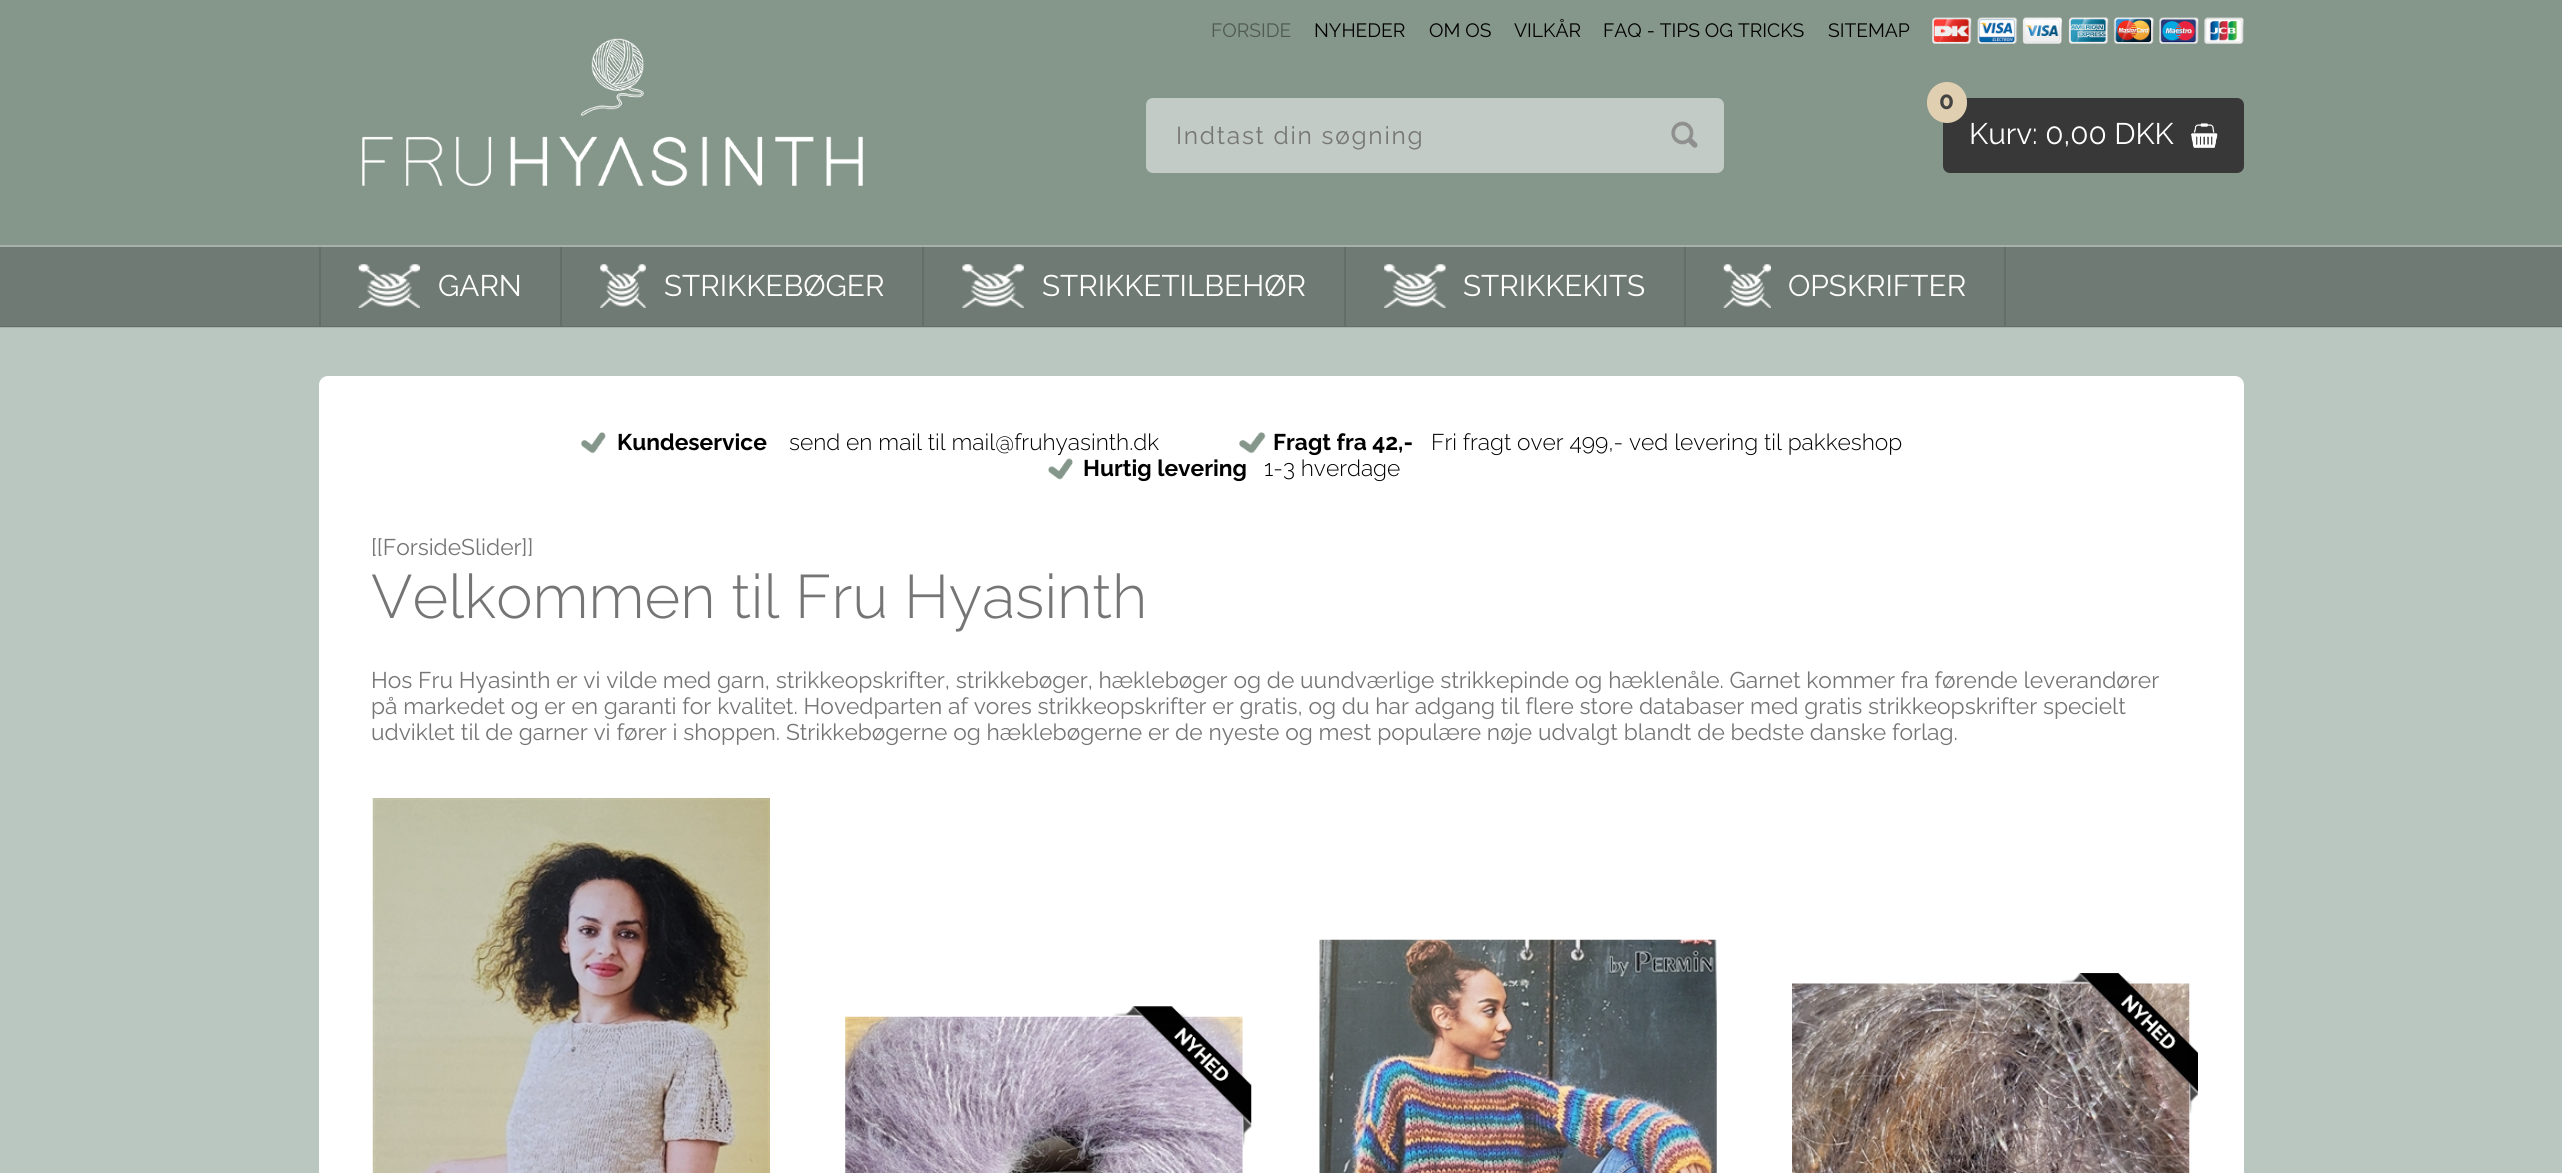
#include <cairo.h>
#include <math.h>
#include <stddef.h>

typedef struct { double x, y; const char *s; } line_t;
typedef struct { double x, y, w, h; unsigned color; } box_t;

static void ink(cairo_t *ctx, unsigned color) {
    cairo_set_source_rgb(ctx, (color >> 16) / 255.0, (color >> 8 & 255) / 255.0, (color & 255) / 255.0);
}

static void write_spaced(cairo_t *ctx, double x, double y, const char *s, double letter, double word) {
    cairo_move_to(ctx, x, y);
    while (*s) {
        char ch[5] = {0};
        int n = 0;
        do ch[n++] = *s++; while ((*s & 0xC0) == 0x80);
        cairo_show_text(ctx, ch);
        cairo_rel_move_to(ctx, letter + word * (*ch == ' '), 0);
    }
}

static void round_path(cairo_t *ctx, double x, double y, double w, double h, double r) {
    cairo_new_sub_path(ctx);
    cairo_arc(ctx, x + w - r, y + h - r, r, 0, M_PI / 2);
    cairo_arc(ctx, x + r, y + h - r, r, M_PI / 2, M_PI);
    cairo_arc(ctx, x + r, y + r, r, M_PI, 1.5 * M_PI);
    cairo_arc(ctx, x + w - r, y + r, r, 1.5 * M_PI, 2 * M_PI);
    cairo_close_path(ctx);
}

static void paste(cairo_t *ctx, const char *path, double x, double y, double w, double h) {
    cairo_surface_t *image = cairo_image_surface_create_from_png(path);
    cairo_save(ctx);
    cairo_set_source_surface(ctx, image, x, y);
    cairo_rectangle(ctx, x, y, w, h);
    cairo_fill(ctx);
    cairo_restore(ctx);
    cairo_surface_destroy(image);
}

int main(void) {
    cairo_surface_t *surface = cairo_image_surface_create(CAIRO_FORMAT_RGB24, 2562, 1173);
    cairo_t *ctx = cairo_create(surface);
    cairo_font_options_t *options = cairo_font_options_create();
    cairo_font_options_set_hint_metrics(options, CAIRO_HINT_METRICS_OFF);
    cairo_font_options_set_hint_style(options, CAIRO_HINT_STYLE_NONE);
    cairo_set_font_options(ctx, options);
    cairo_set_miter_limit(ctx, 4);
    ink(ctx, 0xBAC6C0);
    cairo_paint(ctx);
    ink(ctx, 0xA7B2AD);
    cairo_rectangle(ctx, 0, 327, 2562, 1);
    cairo_fill(ctx);
    ink(ctx, 0x85968A);
    cairo_rectangle(ctx, 0, 0, 2562, 245);
    cairo_fill(ctx);
    cairo_select_font_face(ctx, "Raleway", CAIRO_FONT_SLANT_NORMAL, CAIRO_FONT_WEIGHT_NORMAL);
    cairo_set_font_size(ctx, 19.25);
    ink(ctx, 0x505A53);
    cairo_move_to(ctx, 1211, 37);
    cairo_show_text(ctx, "FORSIDE");
    ink(ctx, 0x000000);
    {
        static const line_t items[] = {
            {1314, 37, "NYHEDER"},
            {1429, 37, "OM OS"},
            {1514, 37, "VILKÅR"},
            {1603, 37, "FAQ - TIPS OG TRICKS"},
            {1828, 37, "SITEMAP"},
        };
        for (size_t i = 0; i < sizeof items / sizeof *items; i++) {
            cairo_move_to(ctx, items[i].x, items[i].y);
            cairo_show_text(ctx, items[i].s);
        }
    }
    paste(ctx, "media/1.png", 1932, 17, 312, 27);
    paste(ctx, "media/2.png", 362, 38, 501, 148);
    ink(ctx, 0xC2CBC5);
    round_path(ctx, 1146, 98, 578, 75, 7);
    cairo_fill(ctx);
    paste(ctx, "media/3.png", 1671, 121, 27, 27);
    cairo_set_font_size(ctx, 24.5);
    ink(ctx, 0x757575);
    write_spaced(ctx, 1176, 144, "Indtast din søgning", 1.75, 0);
    ink(ctx, 0x383838);
    round_path(ctx, 1943, 98, 301, 75, 7);
    cairo_fill(ctx);
    paste(ctx, "media/4.png", 2191, 123, 27, 25);
    ink(ctx, 0xE1CFB2);
    round_path(ctx, 1927, 82, 40, 41, 20);
    cairo_fill(ctx);
    cairo_select_font_face(ctx, "Raleway", CAIRO_FONT_SLANT_NORMAL, CAIRO_FONT_WEIGHT_BOLD);
    ink(ctx, 0x434343);
    cairo_move_to(ctx, 1939, 109);
    cairo_show_text(ctx, "0");
    cairo_select_font_face(ctx, "Raleway", CAIRO_FONT_SLANT_NORMAL, CAIRO_FONT_WEIGHT_NORMAL);
    cairo_set_font_size(ctx, 29.75);
    ink(ctx, 0xFFFFFF);
    cairo_move_to(ctx, 1969, 144);
    cairo_show_text(ctx, "Kurv: 0,00 DKK");
    {
        static const box_t items[] = {
            {0, 247, 2562, 79, 0x6F7A74},
            {0, 326, 2562, 1, 0x646E68},
            {0, 245, 2562, 2, 0xA9AFAC},
            {319, 247, 2, 79, 0x646E68},
        };
        for (size_t i = 0; i < sizeof items / sizeof *items; i++) {
            ink(ctx, items[i].color);
            cairo_rectangle(ctx, items[i].x, items[i].y, items[i].w, items[i].h);
            cairo_fill(ctx);
        }
    }
    paste(ctx, "media/5.png", 358, 264, 62, 44);
    cairo_rectangle(ctx, 560, 247, 2, 79);
    cairo_fill(ctx);
    ink(ctx, 0xFFFFFF);
    cairo_move_to(ctx, 438, 296);
    cairo_show_text(ctx, "GARN");
    paste(ctx, "media/6.png", 600, 264, 46, 44);
    ink(ctx, 0x646E68);
    cairo_rectangle(ctx, 922, 247, 2, 79);
    cairo_fill(ctx);
    ink(ctx, 0xFFFFFF);
    cairo_move_to(ctx, 664, 296);
    cairo_show_text(ctx, "STRIKKEBØGER");
    paste(ctx, "media/7.png", 962, 264, 62, 44);
    ink(ctx, 0x646E68);
    cairo_rectangle(ctx, 1344, 247, 2, 79);
    cairo_fill(ctx);
    ink(ctx, 0xFFFFFF);
    cairo_move_to(ctx, 1042, 296);
    cairo_show_text(ctx, "STRIKKETILBEHØR");
    paste(ctx, "media/8.png", 1384, 264, 62, 44);
    ink(ctx, 0x646E68);
    cairo_rectangle(ctx, 1684, 247, 2, 79);
    cairo_fill(ctx);
    ink(ctx, 0xFFFFFF);
    cairo_move_to(ctx, 1463, 296);
    cairo_show_text(ctx, "STRIKKEKITS");
    paste(ctx, "media/9.png", 1723, 264, 48, 44);
    ink(ctx, 0x646E68);
    cairo_rectangle(ctx, 2004, 247, 2, 79);
    cairo_fill(ctx);
    ink(ctx, 0xFFFFFF);
    cairo_move_to(ctx, 1788, 296);
    cairo_show_text(ctx, "OPSKRIFTER");
    round_path(ctx, 319, 376, 1925, 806, 9);
    cairo_fill(ctx);
    paste(ctx, "media/10.png", 581, 432, 25, 22);
    cairo_select_font_face(ctx, "Raleway", CAIRO_FONT_SLANT_NORMAL, CAIRO_FONT_WEIGHT_BOLD);
    cairo_set_font_size(ctx, 22.75);
    ink(ctx, 0x000000);
    cairo_move_to(ctx, 617, 450);
    cairo_show_text(ctx, "Kundeservice");
    cairo_select_font_face(ctx, "Raleway Light", CAIRO_FONT_SLANT_NORMAL, CAIRO_FONT_WEIGHT_NORMAL);
    cairo_move_to(ctx, 789, 450);
    cairo_show_text(ctx, "send en mail til mail@fruhyasinth.dk");
    paste(ctx, "media/11.png", 1239, 432, 27, 22);
    cairo_select_font_face(ctx, "Raleway", CAIRO_FONT_SLANT_NORMAL, CAIRO_FONT_WEIGHT_BOLD);
    cairo_move_to(ctx, 1273, 450);
    cairo_show_text(ctx, "Fragt fra 42,-");
    cairo_select_font_face(ctx, "Raleway Light", CAIRO_FONT_SLANT_NORMAL, CAIRO_FONT_WEIGHT_NORMAL);
    cairo_move_to(ctx, 1431, 450);
    cairo_show_text(ctx, "Fri fragt over 499,- ved levering til pakkeshop");
    paste(ctx, "media/12.png", 1048, 458, 25, 22);
    cairo_select_font_face(ctx, "Raleway", CAIRO_FONT_SLANT_NORMAL, CAIRO_FONT_WEIGHT_BOLD);
    cairo_move_to(ctx, 1083, 476);
    cairo_show_text(ctx, "Hurtig levering");
    cairo_select_font_face(ctx, "Raleway Light", CAIRO_FONT_SLANT_NORMAL, CAIRO_FONT_WEIGHT_NORMAL);
    cairo_move_to(ctx, 1264, 476);
    cairo_show_text(ctx, "1-3 hverdage");
    cairo_select_font_face(ctx, "Raleway", CAIRO_FONT_SLANT_NORMAL, CAIRO_FONT_WEIGHT_NORMAL);
    ink(ctx, 0x757575);
    cairo_move_to(ctx, 371, 555);
    cairo_show_text(ctx, "[[ForsideSlider]]");
    cairo_select_font_face(ctx, "Raleway Light", CAIRO_FONT_SLANT_NORMAL, CAIRO_FONT_WEIGHT_NORMAL);
    cairo_set_font_size(ctx, 61.25);
    cairo_move_to(ctx, 371, 618);
    cairo_show_text(ctx, "Velkommen til Fru Hyasinth");
    cairo_select_font_face(ctx, "Raleway", CAIRO_FONT_SLANT_NORMAL, CAIRO_FONT_WEIGHT_NORMAL);
    cairo_set_font_size(ctx, 22.75);
    {
        static const line_t items[] = {
            {371, 688, "Hos Fru Hyasinth er vi vilde med garn, strikkeopskrifter, strikkebøger, hæklebøger og de uundværlige strikkepinde og hæklenåle. Garnet kommer fra førende leverandører"},
            {371, 714, "på markedet og er en garanti for kvalitet. Hovedparten af vores strikkeopskrifter er gratis, og du har adgang til flere store databaser med gratis strikkeopskrifter specielt"},
            {371, 740, "udviklet til de garner vi fører i shoppen. Strikkebøgerne og hæklebøgerne er de nyeste og mest populære nøje udvalgt blandt de bedste danske forlag."},
        };
        for (size_t i = 0; i < sizeof items / sizeof *items; i++) {
            cairo_move_to(ctx, items[i].x, items[i].y);
            cairo_show_text(ctx, items[i].s);
        }
    }
    paste(ctx, "media/13.png", 372, 798, 398, 375);
    paste(ctx, "media/15.png", 845, 1016, 398, 157);
    paste(ctx, "media/14.png", 1113, 1006, 139, 140);
    paste(ctx, "media/16.png", 1319, 939, 398, 234);
    paste(ctx, "media/18.png", 1792, 983, 398, 190);
    paste(ctx, "media/17.png", 2060, 973, 138, 141);
    cairo_surface_write_to_png(surface, "image.png");
    cairo_font_options_destroy(options);
    cairo_destroy(ctx);
    cairo_surface_destroy(surface);
    return 0;
}
